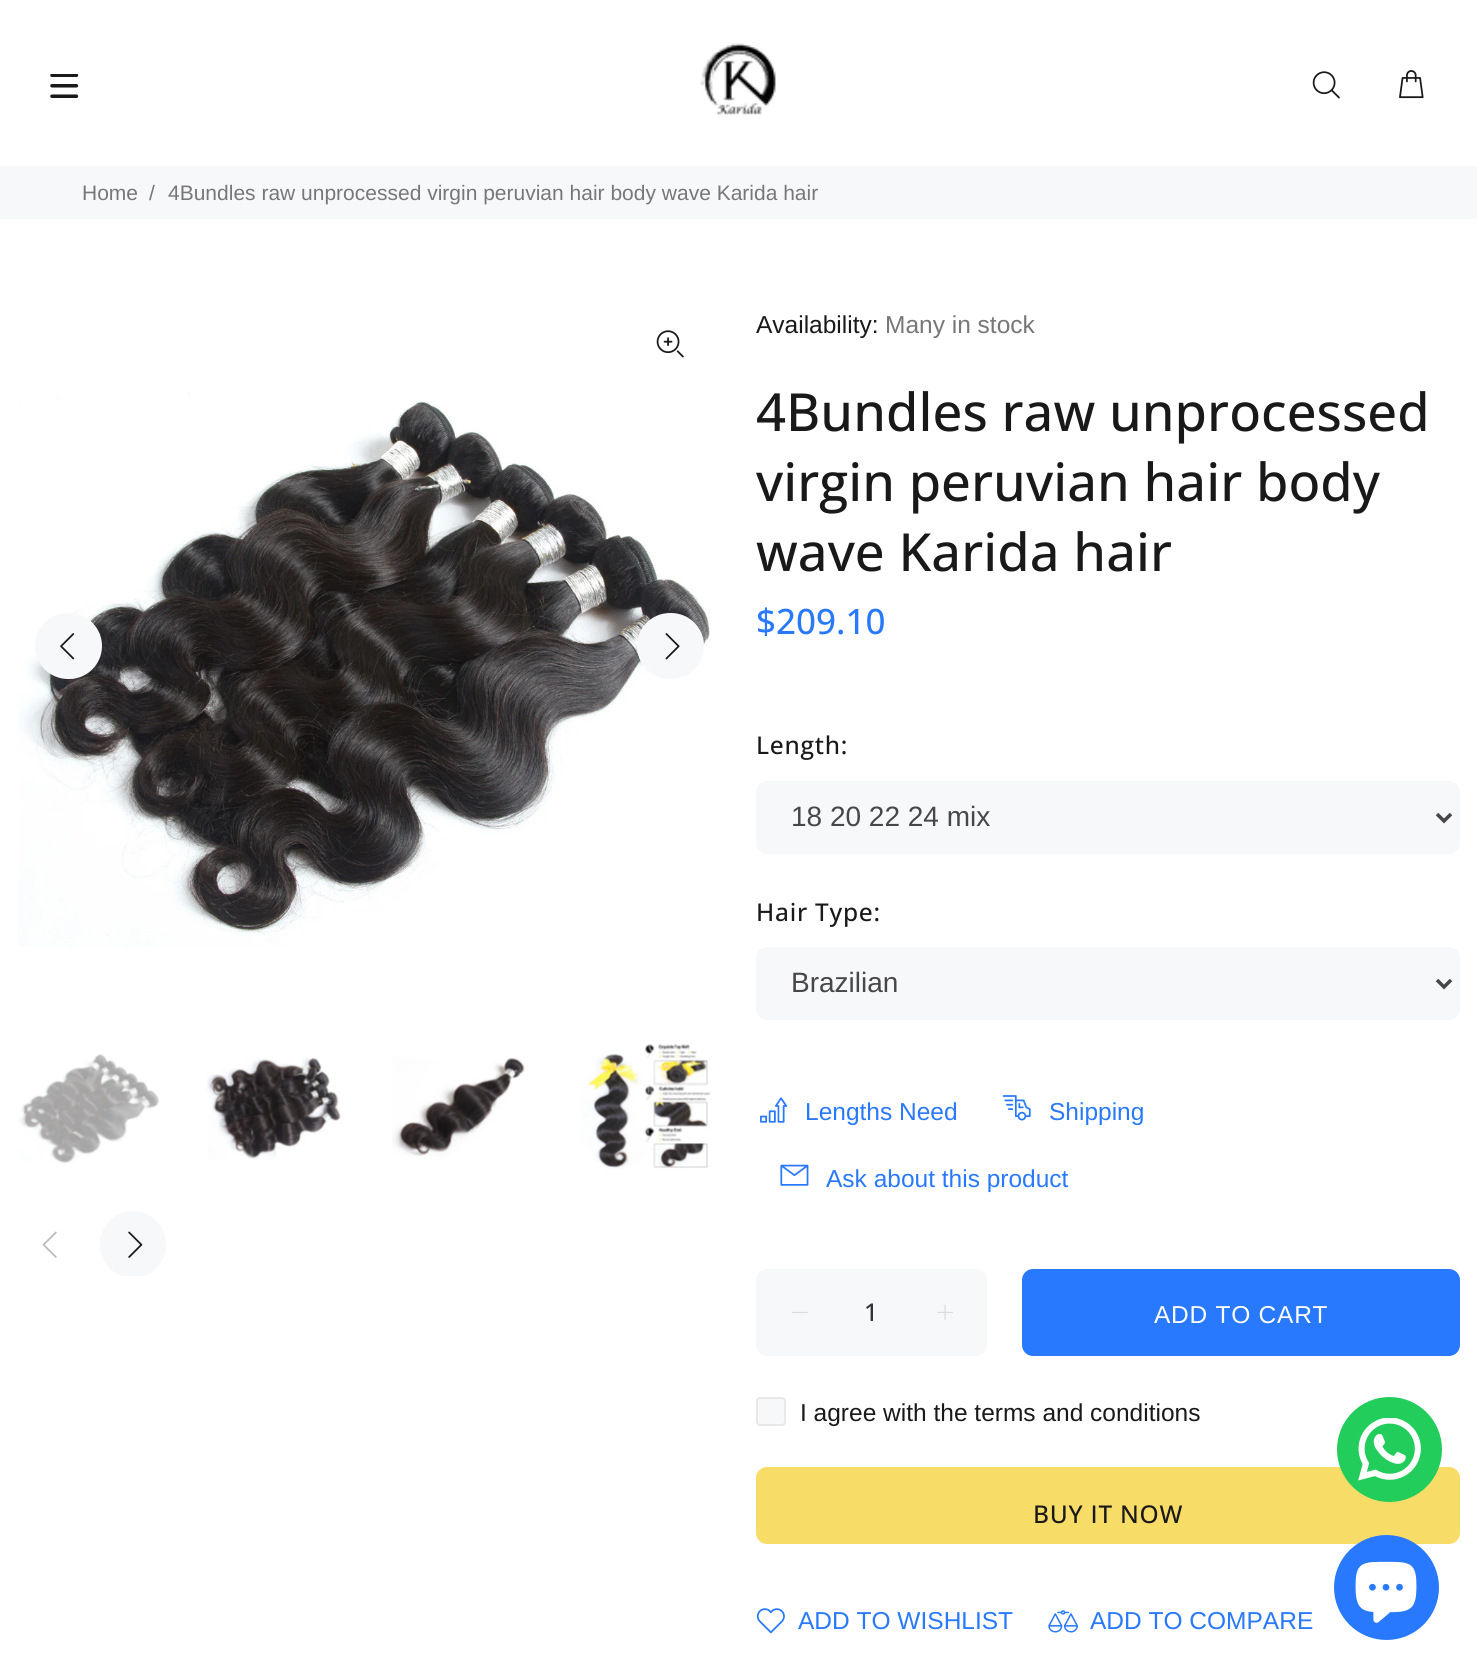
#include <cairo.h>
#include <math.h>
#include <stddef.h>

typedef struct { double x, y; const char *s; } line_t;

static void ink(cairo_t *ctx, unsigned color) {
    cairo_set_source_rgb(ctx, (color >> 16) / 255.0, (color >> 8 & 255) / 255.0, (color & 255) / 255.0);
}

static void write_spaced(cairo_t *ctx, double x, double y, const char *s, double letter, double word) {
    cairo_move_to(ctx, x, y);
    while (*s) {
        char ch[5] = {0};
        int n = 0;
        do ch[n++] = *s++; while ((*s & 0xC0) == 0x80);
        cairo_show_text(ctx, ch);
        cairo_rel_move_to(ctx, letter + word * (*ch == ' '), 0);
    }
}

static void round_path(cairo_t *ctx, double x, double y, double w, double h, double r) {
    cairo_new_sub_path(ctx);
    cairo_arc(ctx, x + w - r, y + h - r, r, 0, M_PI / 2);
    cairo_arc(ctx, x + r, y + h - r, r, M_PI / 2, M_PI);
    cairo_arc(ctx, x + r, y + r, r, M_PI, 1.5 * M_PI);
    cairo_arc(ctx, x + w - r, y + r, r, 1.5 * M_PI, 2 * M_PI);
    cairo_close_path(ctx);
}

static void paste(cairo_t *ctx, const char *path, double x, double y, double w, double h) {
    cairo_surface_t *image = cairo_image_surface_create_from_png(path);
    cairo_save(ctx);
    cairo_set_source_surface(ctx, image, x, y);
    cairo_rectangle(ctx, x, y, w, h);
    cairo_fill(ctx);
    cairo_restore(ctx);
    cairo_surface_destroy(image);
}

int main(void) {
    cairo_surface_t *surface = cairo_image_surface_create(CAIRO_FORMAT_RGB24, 1477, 1675);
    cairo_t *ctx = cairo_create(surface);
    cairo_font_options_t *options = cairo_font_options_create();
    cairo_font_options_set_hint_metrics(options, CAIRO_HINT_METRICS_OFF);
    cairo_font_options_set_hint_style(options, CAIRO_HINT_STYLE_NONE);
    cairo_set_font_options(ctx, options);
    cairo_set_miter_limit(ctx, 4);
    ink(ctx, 0xFFFFFF);
    cairo_paint(ctx);
    paste(ctx, "media/1.png", 50, 74, 29, 24);
    paste(ctx, "media/2.png", 700, 43, 76, 73);
    paste(ctx, "media/3.png", 1312, 71, 28, 28);
    paste(ctx, "media/4.png", 1399, 70, 25, 29);
    ink(ctx, 0xF7F8FA);
    cairo_rectangle(ctx, 0, 166, 1477, 53);
    cairo_fill(ctx);
    cairo_select_font_face(ctx, "Liberation Sans", CAIRO_FONT_SLANT_NORMAL, CAIRO_FONT_WEIGHT_NORMAL);
    cairo_set_font_size(ctx, 21);
    ink(ctx, 0x777777);
    {
        static const line_t items[] = {
            {82, 200, "Home"},
            {149, 200, "/"},
            {168, 200, "4Bundles raw unprocessed virgin peruvian hair body wave Karida hair"},
        };
        for (size_t i = 0; i < sizeof items / sizeof *items; i++) {
            cairo_move_to(ctx, items[i].x, items[i].y);
            cairo_show_text(ctx, items[i].s);
        }
    }
    paste(ctx, "media/5.png", 656, 330, 28, 28);
    paste(ctx, "media/6.png", 18, 392, 692, 555);
    ink(ctx, 0xF7F8FA);
    round_path(ctx, 35, 613, 67, 66, 33);
    cairo_fill(ctx);
    paste(ctx, "media/7.png", 60, 633, 15, 27);
    round_path(ctx, 637, 613, 67, 66, 33);
    cairo_fill(ctx);
    paste(ctx, "media/8.png", 665, 633, 15, 27);
    paste(ctx, "media/9.png", 18, 1054, 142, 111);
    paste(ctx, "media/10.png", 207, 1057, 134, 103);
    paste(ctx, "media/11.png", 392, 1057, 133, 100);
    paste(ctx, "media/12.png", 580, 1044, 131, 125);
    paste(ctx, "media/13.png", 42, 1231, 15, 27);
    cairo_save(ctx);
    cairo_rectangle(ctx, 18, 294, 703, 982);
    cairo_clip(ctx);
    round_path(ctx, 100, 1211, 66, 67, 33);
    cairo_fill(ctx);
    cairo_restore(ctx);
    paste(ctx, "media/14.png", 128, 1231, 15, 27);
    cairo_set_font_size(ctx, 24.5);
    ink(ctx, 0x191919);
    cairo_move_to(ctx, 756, 333);
    cairo_show_text(ctx, "Availability:");
    ink(ctx, 0x777777);
    cairo_move_to(ctx, 885, 333);
    cairo_show_text(ctx, "Many in stock");
    cairo_select_font_face(ctx, "Open Sans Medium", CAIRO_FONT_SLANT_NORMAL, CAIRO_FONT_WEIGHT_NORMAL);
    cairo_set_font_size(ctx, 52.5);
    ink(ctx, 0x191919);
    {
        static const line_t items[] = {
            {756, 431, "4Bundles raw unprocessed"},
            {756, 501, "virgin peruvian hair body"},
            {756, 571, "wave Karida hair"},
        };
        for (size_t i = 0; i < sizeof items / sizeof *items; i++) {
            write_spaced(ctx, items[i].x, items[i].y, items[i].s, 0.05, 0);
        }
    }
    cairo_set_font_size(ctx, 35);
    ink(ctx, 0x2879FE);
    cairo_move_to(ctx, 756, 634);
    cairo_show_text(ctx, "$209.10");
    cairo_set_font_size(ctx, 24.5);
    ink(ctx, 0x191919);
    write_spaced(ctx, 756, 754, "Length:", 0.75, 0);
    ink(ctx, 0xF7F8FA);
    round_path(ctx, 756, 781, 704, 73, 11);
    cairo_fill(ctx);
    cairo_new_path(ctx);
    cairo_move_to(ctx, 1437, 814);
    cairo_line_to(ctx, 1444, 821);
    cairo_line_to(ctx, 1451, 814);
    ink(ctx, 0x474747);
    cairo_set_line_width(ctx, 3.5);
    cairo_stroke(ctx);
    cairo_select_font_face(ctx, "Liberation Sans", CAIRO_FONT_SLANT_NORMAL, CAIRO_FONT_WEIGHT_NORMAL);
    cairo_set_font_size(ctx, 28);
    cairo_move_to(ctx, 791, 826);
    cairo_show_text(ctx, "18 20 22 24 mix");
    cairo_select_font_face(ctx, "Open Sans Medium", CAIRO_FONT_SLANT_NORMAL, CAIRO_FONT_WEIGHT_NORMAL);
    cairo_set_font_size(ctx, 24.5);
    ink(ctx, 0x191919);
    write_spaced(ctx, 756, 921, "Hair Type:", 0.75, 0);
    ink(ctx, 0xF7F8FA);
    round_path(ctx, 756, 947, 704, 73, 11);
    cairo_fill(ctx);
    cairo_new_path(ctx);
    cairo_move_to(ctx, 1437, 980);
    cairo_line_to(ctx, 1444, 987);
    cairo_line_to(ctx, 1451, 980);
    ink(ctx, 0x474747);
    cairo_stroke(ctx);
    cairo_select_font_face(ctx, "Liberation Sans", CAIRO_FONT_SLANT_NORMAL, CAIRO_FONT_WEIGHT_NORMAL);
    cairo_set_font_size(ctx, 28);
    cairo_move_to(ctx, 791, 992);
    cairo_show_text(ctx, "Brazilian");
    paste(ctx, "media/15.png", 760, 1097, 28, 26);
    cairo_set_font_size(ctx, 24.5);
    ink(ctx, 0x2879FE);
    cairo_move_to(ctx, 805, 1120);
    cairo_show_text(ctx, "Lengths Need");
    paste(ctx, "media/16.png", 1002, 1095, 29, 26);
    cairo_move_to(ctx, 1049, 1120);
    cairo_show_text(ctx, "Shipping");
    paste(ctx, "media/17.png", 780, 1164, 29, 22);
    cairo_move_to(ctx, 826, 1187);
    cairo_show_text(ctx, "Ask about this product");
    ink(ctx, 0xF7F8FA);
    round_path(ctx, 756, 1269, 231, 87, 11);
    cairo_fill(ctx);
    paste(ctx, "media/18.png", 792, 1311, 16, 2);
    cairo_select_font_face(ctx, "Open Sans Medium", CAIRO_FONT_SLANT_NORMAL, CAIRO_FONT_WEIGHT_NORMAL);
    ink(ctx, 0x333333);
    cairo_move_to(ctx, 864, 1321);
    cairo_show_text(ctx, "1");
    paste(ctx, "media/19.png", 937, 1304, 16, 16);
    ink(ctx, 0x2879FE);
    round_path(ctx, 1022, 1269, 438, 87, 11);
    cairo_fill(ctx);
    cairo_select_font_face(ctx, "Liberation Sans", CAIRO_FONT_SLANT_NORMAL, CAIRO_FONT_WEIGHT_NORMAL);
    ink(ctx, 0xFFFFFF);
    write_spaced(ctx, 1154, 1323, "ADD TO CART", 0.75, 0);
    ink(ctx, 0xF7F8FA);
    round_path(ctx, 757, 1398, 28, 27, 3);
    cairo_fill_preserve(ctx);
    ink(ctx, 0xE9E7E7);
    cairo_set_line_width(ctx, 2);
    cairo_stroke(ctx);
    ink(ctx, 0x191919);
    cairo_move_to(ctx, 800, 1421);
    cairo_show_text(ctx, "I agree with the terms and conditions");
    ink(ctx, 0xF8DC68);
    round_path(ctx, 756, 1467, 704, 77, 11);
    cairo_fill(ctx);
    cairo_select_font_face(ctx, "Open Sans Medium", CAIRO_FONT_SLANT_NORMAL, CAIRO_FONT_WEIGHT_NORMAL);
    ink(ctx, 0x191919);
    write_spaced(ctx, 1033, 1523, "BUY IT NOW", 0.75, 0);
    paste(ctx, "media/20.png", 756, 1608, 29, 26);
    cairo_select_font_face(ctx, "Liberation Sans", CAIRO_FONT_SLANT_NORMAL, CAIRO_FONT_WEIGHT_NORMAL);
    ink(ctx, 0x2879FE);
    cairo_move_to(ctx, 798, 1629);
    cairo_show_text(ctx, "ADD TO WISHLIST");
    paste(ctx, "media/21.png", 1048, 1610, 30, 23);
    cairo_move_to(ctx, 1090, 1629);
    cairo_show_text(ctx, "ADD TO COMPARE");
    ink(ctx, 0x22CD5B);
    cairo_new_path(ctx);
    cairo_arc(ctx, 1389.5, 1449.5, 52.5, 0, 2 * M_PI);
    cairo_fill(ctx);
    paste(ctx, "media/22.png", 1358, 1418, 63, 63);
    ink(ctx, 0x2879FE);
    cairo_arc(ctx, 1386.5, 1587.5, 52.5, 0, 2 * M_PI);
    cairo_fill(ctx);
    paste(ctx, "media/23.png", 1355, 1561, 62, 62);
    cairo_surface_write_to_png(surface, "image.png");
    cairo_font_options_destroy(options);
    cairo_destroy(ctx);
    cairo_surface_destroy(surface);
    return 0;
}
